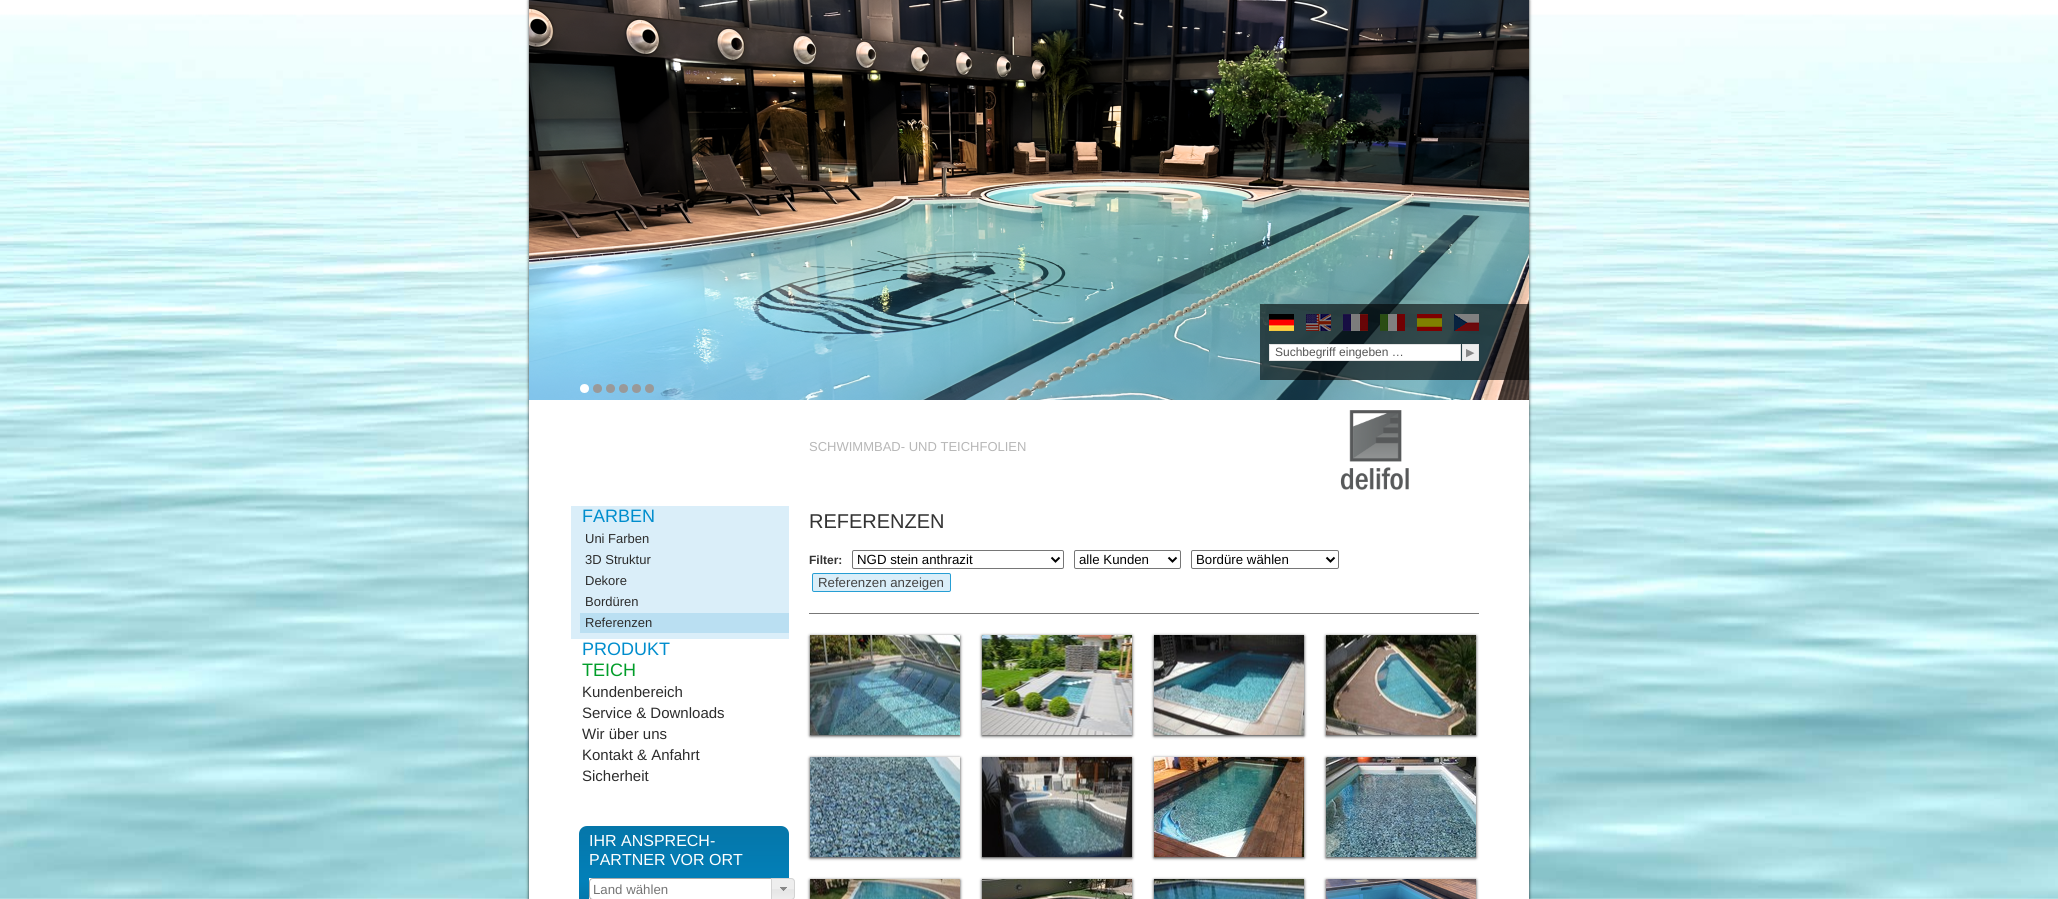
#include <cairo.h>
#include <math.h>
#include <stddef.h>

typedef struct { double x, y; const char *s; } line_t;

static void ink(cairo_t *ctx, unsigned color) {
    cairo_set_source_rgb(ctx, (color >> 16) / 255.0, (color >> 8 & 255) / 255.0, (color & 255) / 255.0);
}

static void round_path(cairo_t *ctx, double x, double y, double w, double h, double r) {
    cairo_new_sub_path(ctx);
    cairo_arc(ctx, x + w - r, y + h - r, r, 0, M_PI / 2);
    cairo_arc(ctx, x + r, y + h - r, r, M_PI / 2, M_PI);
    cairo_arc(ctx, x + r, y + r, r, M_PI, 1.5 * M_PI);
    cairo_arc(ctx, x + w - r, y + r, r, 1.5 * M_PI, 2 * M_PI);
    cairo_close_path(ctx);
}

static void blur_box(cairo_t *ctx, double x, double y, double w, double h, double r, double blur, double alpha) {
    cairo_push_group_with_content(ctx, CAIRO_CONTENT_ALPHA);
    cairo_set_operator(ctx, CAIRO_OPERATOR_SOURCE);
    for (int i = 15; i >= -15 && fmin(w, h) + blur * i / 3 > 0; i -= 2) {
        double e = blur * i / 6;
        cairo_set_source_rgba(ctx, 0, 0, 0, alpha * erfc((i - 1) / 8.5) / 2);
        round_path(ctx, x - e, y - e, w + 2 * e, h + 2 * e, fmax(0, fmin(r + e + blur * .6, fmin(w, h) / 2 + e)));
        cairo_fill(ctx);
    }
    cairo_pattern_t *soft = cairo_pop_group(ctx);
    cairo_mask(ctx, soft);
    cairo_pattern_destroy(soft);
}

static void paste(cairo_t *ctx, const char *path, double x, double y, double w, double h) {
    cairo_surface_t *image = cairo_image_surface_create_from_png(path);
    cairo_save(ctx);
    cairo_set_source_surface(ctx, image, x, y);
    cairo_rectangle(ctx, x, y, w, h);
    cairo_fill(ctx);
    cairo_restore(ctx);
    cairo_surface_destroy(image);
}

int main(void) {
    cairo_surface_t *surface = cairo_image_surface_create(CAIRO_FORMAT_RGB24, 2058, 899);
    cairo_t *ctx = cairo_create(surface);
    cairo_font_options_t *options = cairo_font_options_create();
    cairo_font_options_set_hint_metrics(options, CAIRO_HINT_METRICS_OFF);
    cairo_font_options_set_hint_style(options, CAIRO_HINT_STYLE_NONE);
    cairo_set_font_options(ctx, options);
    cairo_set_miter_limit(ctx, 4);
    cairo_pattern_t *gradient;
    ink(ctx, 0xFFFFFF);
    cairo_paint(ctx);
    paste(ctx, "media/1.png", 0, 14, 2058, 885);
    ink(ctx, 0x000000);
    blur_box(ctx, 529, 0, 1000, 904, 0, 1.5, 0.8);
    ink(ctx, 0xFFFFFF);
    cairo_rectangle(ctx, 529, 400, 1000, 499);
    cairo_fill(ctx);
    paste(ctx, "media/2.png", 529, 0, 1000, 400);
    cairo_arc(ctx, 584.5, 388.5, 4.5, 0, 2 * M_PI);
    cairo_fill(ctx);
    ink(ctx, 0x999999);
    cairo_arc(ctx, 597.5, 388.5, 4.5, 0, 2 * M_PI);
    cairo_fill(ctx);
    cairo_arc(ctx, 610.5, 388.5, 4.5, 0, 2 * M_PI);
    cairo_fill(ctx);
    cairo_arc(ctx, 623.5, 388.5, 4.5, 0, 2 * M_PI);
    cairo_fill(ctx);
    cairo_arc(ctx, 636.5, 388.5, 4.5, 0, 2 * M_PI);
    cairo_fill(ctx);
    cairo_arc(ctx, 649.5, 388.5, 4.5, 0, 2 * M_PI);
    cairo_fill(ctx);
    cairo_set_source_rgba(ctx, 0, 0, 0, 0.6);
    cairo_rectangle(ctx, 1260, 304, 269, 76);
    cairo_fill(ctx);
    ink(ctx, 0x000000);
    cairo_rectangle(ctx, 1269, 314, 25, 5);
    cairo_fill(ctx);
    paste(ctx, "media/3.png", 1269, 319, 25, 12);
    cairo_rectangle(ctx, 1306, 314, 25, 17);
    cairo_fill(ctx);
    paste(ctx, "media/4.png", 1306, 314, 25, 17);
    cairo_rectangle(ctx, 1343, 314, 25, 17);
    cairo_fill(ctx);
    paste(ctx, "media/5.png", 1343, 314, 25, 17);
    cairo_rectangle(ctx, 1380, 314, 25, 17);
    cairo_fill(ctx);
    paste(ctx, "media/6.png", 1380, 314, 25, 17);
    cairo_rectangle(ctx, 1417, 314, 25, 17);
    cairo_fill(ctx);
    paste(ctx, "media/7.png", 1417, 314, 25, 17);
    cairo_rectangle(ctx, 1454, 314, 25, 17);
    cairo_fill(ctx);
    paste(ctx, "media/8.png", 1454, 314, 25, 17);
    ink(ctx, 0xFFFFFF);
    cairo_rectangle(ctx, 1269.5, 344.5, 191, 16);
    cairo_fill_preserve(ctx);
    ink(ctx, 0xE3E3E3);
    cairo_set_line_width(ctx, 1);
    cairo_stroke(ctx);
    cairo_select_font_face(ctx, "Liberation Sans", CAIRO_FONT_SLANT_NORMAL, CAIRO_FONT_WEIGHT_NORMAL);
    cairo_set_font_size(ctx, 12);
    ink(ctx, 0x555555);
    cairo_move_to(ctx, 1275, 356);
    cairo_show_text(ctx, "Suchbegriff eingeben …");
    ink(ctx, 0xEEEEEE);
    cairo_rectangle(ctx, 1462.5, 344.5, 16, 16);
    cairo_fill_preserve(ctx);
    ink(ctx, 0xE3E3E3);
    cairo_stroke(ctx);
    cairo_select_font_face(ctx, "DejaVu Sans", CAIRO_FONT_SLANT_NORMAL, CAIRO_FONT_WEIGHT_NORMAL);
    cairo_set_font_size(ctx, 11);
    ink(ctx, 0x888888);
    cairo_move_to(ctx, 1466, 356);
    cairo_show_text(ctx, "▶");
    cairo_select_font_face(ctx, "Liberation Sans", CAIRO_FONT_SLANT_NORMAL, CAIRO_FONT_WEIGHT_NORMAL);
    cairo_set_font_size(ctx, 13);
    ink(ctx, 0xB7B7B7);
    cairo_move_to(ctx, 809, 451);
    cairo_show_text(ctx, "SCHWIMMBAD- UND TEICHFOLIEN");
    paste(ctx, "media/9.png", 1340, 410, 69, 80);
    ink(ctx, 0xDAEEF9);
    cairo_rectangle(ctx, 571, 506, 218, 133);
    cairo_fill(ctx);
    cairo_set_font_size(ctx, 18);
    ink(ctx, 0x008DCD);
    cairo_move_to(ctx, 582, 522);
    cairo_show_text(ctx, "FARBEN");
    cairo_set_font_size(ctx, 13);
    ink(ctx, 0x2C2C2C);
    {
        static const line_t items[] = {
            {585, 543, "Uni Farben"},
            {585, 564, "3D Struktur"},
            {585, 585, "Dekore"},
            {585, 606, "Bordüren"},
        };
        for (size_t i = 0; i < sizeof items / sizeof *items; i++) {
            cairo_move_to(ctx, items[i].x, items[i].y);
            cairo_show_text(ctx, items[i].s);
        }
    }
    ink(ctx, 0xBADFF2);
    cairo_rectangle(ctx, 580, 613, 209, 20);
    cairo_fill(ctx);
    ink(ctx, 0x2C2C2C);
    cairo_move_to(ctx, 585, 627);
    cairo_show_text(ctx, "Referenzen");
    cairo_set_font_size(ctx, 18);
    ink(ctx, 0x008DCD);
    cairo_move_to(ctx, 582, 655);
    cairo_show_text(ctx, "PRODUKT");
    ink(ctx, 0x019D29);
    cairo_move_to(ctx, 582, 676);
    cairo_show_text(ctx, "TEICH");
    cairo_set_font_size(ctx, 15);
    ink(ctx, 0x2C2C2C);
    {
        static const line_t items[] = {
            {582, 697, "Kundenbereich"},
            {582, 718, "Service & Downloads"},
            {582, 739, "Wir über uns"},
            {582, 760, "Kontakt & Anfahrt"},
            {582, 781, "Sicherheit"},
        };
        for (size_t i = 0; i < sizeof items / sizeof *items; i++) {
            cairo_move_to(ctx, items[i].x, items[i].y);
            cairo_show_text(ctx, items[i].s);
        }
    }
    gradient = cairo_pattern_create_linear(684, 826, 684, 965);
    cairo_pattern_add_color_stop_rgba(gradient, 0, 0.02, 0.463, 0.663, 1);
    cairo_pattern_add_color_stop_rgba(gradient, 0.4, 0.008, 0.502, 0.725, 1);
    cairo_pattern_add_color_stop_rgba(gradient, 1, 0.051, 0.337, 0.467, 1);
    cairo_set_source(ctx, gradient);
    cairo_pattern_destroy(gradient);
    round_path(ctx, 579, 826, 210, 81, 8);
    cairo_fill(ctx);
    cairo_set_font_size(ctx, 16);
    ink(ctx, 0xFFFFFF);
    cairo_move_to(ctx, 589, 846);
    cairo_show_text(ctx, "IHR ANSPRECH-");
    cairo_move_to(ctx, 589, 865);
    cairo_show_text(ctx, "PARTNER VOR ORT");
    cairo_rectangle(ctx, 593, 879, 178, 20);
    cairo_fill(ctx);
    cairo_rectangle(ctx, 589, 878, 4, 21);
    cairo_fill(ctx);
    cairo_new_path(ctx);
    cairo_move_to(ctx, 593, 878.5);
    cairo_line_to(ctx, 771.5, 878.5);
    cairo_line_to(ctx, 771.5, 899.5);
    cairo_line_to(ctx, 593, 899.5);
    cairo_curve_to(ctx, 591, 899.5, 589.5, 898, 589.5, 896);
    cairo_line_to(ctx, 589.5, 882);
    cairo_curve_to(ctx, 589.5, 880, 591, 878.5, 593, 878.5);
    cairo_close_path(ctx);
    ink(ctx, 0xAAAAAA);
    cairo_stroke(ctx);
    cairo_set_font_size(ctx, 13.25);
    ink(ctx, 0x757575);
    cairo_move_to(ctx, 593, 894);
    cairo_show_text(ctx, "Land wählen");
    paste(ctx, "media/10.png", 772, 878, 23, 21);
    cairo_new_path(ctx);
    cairo_move_to(ctx, 771.5, 878.5);
    cairo_line_to(ctx, 791, 878.5);
    cairo_curve_to(ctx, 793, 878.5, 794.5, 880, 794.5, 882);
    cairo_line_to(ctx, 794.5, 896);
    cairo_curve_to(ctx, 794.5, 898, 793, 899.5, 791, 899.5);
    cairo_line_to(ctx, 771.5, 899.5);
    cairo_close_path(ctx);
    ink(ctx, 0xD3D3D3);
    cairo_stroke(ctx);
    paste(ctx, "media/11.png", 780, 887, 7, 4);
    cairo_set_font_size(ctx, 20);
    ink(ctx, 0x333333);
    cairo_move_to(ctx, 809, 528);
    cairo_show_text(ctx, "REFERENZEN");
    cairo_select_font_face(ctx, "Liberation Sans", CAIRO_FONT_SLANT_NORMAL, CAIRO_FONT_WEIGHT_BOLD);
    cairo_set_font_size(ctx, 12);
    cairo_move_to(ctx, 809, 564);
    cairo_show_text(ctx, "Filter:");
    round_path(ctx, 852.5, 550.5, 211, 18, 1.5);
    ink(ctx, 0x767676);
    cairo_stroke(ctx);
    cairo_new_path(ctx);
    cairo_move_to(ctx, 1051.5, 557.5);
    cairo_line_to(ctx, 1055.5, 561.5);
    cairo_line_to(ctx, 1059.5, 557.5);
    ink(ctx, 0x000000);
    cairo_set_line_width(ctx, 2);
    cairo_stroke(ctx);
    cairo_select_font_face(ctx, "Liberation Sans", CAIRO_FONT_SLANT_NORMAL, CAIRO_FONT_WEIGHT_NORMAL);
    cairo_set_font_size(ctx, 13.25);
    cairo_move_to(ctx, 857, 564);
    cairo_show_text(ctx, "NGD stein anthrazit");
    round_path(ctx, 1074.5, 550.5, 106, 18, 1.5);
    ink(ctx, 0x767676);
    cairo_set_line_width(ctx, 1);
    cairo_stroke(ctx);
    cairo_new_path(ctx);
    cairo_move_to(ctx, 1168.5, 557.5);
    cairo_line_to(ctx, 1172.5, 561.5);
    cairo_line_to(ctx, 1176.5, 557.5);
    ink(ctx, 0x000000);
    cairo_set_line_width(ctx, 2);
    cairo_stroke(ctx);
    cairo_move_to(ctx, 1079, 564);
    cairo_show_text(ctx, "alle Kunden");
    round_path(ctx, 1191.5, 550.5, 147, 18, 1.5);
    ink(ctx, 0x767676);
    cairo_set_line_width(ctx, 1);
    cairo_stroke(ctx);
    cairo_new_path(ctx);
    cairo_move_to(ctx, 1326.5, 557.5);
    cairo_line_to(ctx, 1330.5, 561.5);
    cairo_line_to(ctx, 1334.5, 557.5);
    ink(ctx, 0x000000);
    cairo_set_line_width(ctx, 2);
    cairo_stroke(ctx);
    cairo_move_to(ctx, 1196, 564);
    cairo_show_text(ctx, "Bordüre wählen");
    ink(ctx, 0xDAEEF9);
    round_path(ctx, 812.5, 573.5, 138, 18, 1.5);
    cairo_fill_preserve(ctx);
    ink(ctx, 0x269ED4);
    cairo_set_line_width(ctx, 1);
    cairo_stroke(ctx);
    ink(ctx, 0x444444);
    cairo_move_to(ctx, 818, 587);
    cairo_show_text(ctx, "Referenzen anzeigen");
    ink(ctx, 0x777777);
    cairo_rectangle(ctx, 809, 613, 670, 1);
    cairo_fill(ctx);
    ink(ctx, 0x000000);
    blur_box(ctx, 810, 636, 150, 100, 0, 1.5, 0.8);
    paste(ctx, "media/12.png", 810, 635, 150, 100);
    blur_box(ctx, 982, 636, 150, 100, 0, 1.5, 0.8);
    paste(ctx, "media/13.png", 982, 635, 150, 100);
    blur_box(ctx, 1154, 636, 150, 100, 0, 1.5, 0.8);
    paste(ctx, "media/14.png", 1154, 635, 150, 100);
    blur_box(ctx, 1326, 636, 150, 100, 0, 1.5, 0.8);
    paste(ctx, "media/15.png", 1326, 635, 150, 100);
    blur_box(ctx, 810, 758, 150, 100, 0, 1.5, 0.8);
    paste(ctx, "media/16.png", 810, 757, 150, 100);
    blur_box(ctx, 982, 758, 150, 100, 0, 1.5, 0.8);
    paste(ctx, "media/17.png", 982, 757, 150, 100);
    blur_box(ctx, 1154, 758, 150, 100, 0, 1.5, 0.8);
    paste(ctx, "media/18.png", 1154, 757, 150, 100);
    blur_box(ctx, 1326, 758, 150, 100, 0, 1.5, 0.8);
    paste(ctx, "media/19.png", 1326, 757, 150, 100);
    blur_box(ctx, 810, 880, 150, 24, 0, 1.5, 0.8);
    paste(ctx, "media/20.png", 810, 879, 150, 20);
    blur_box(ctx, 982, 880, 150, 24, 0, 1.5, 0.8);
    paste(ctx, "media/21.png", 982, 879, 150, 20);
    blur_box(ctx, 1154, 880, 150, 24, 0, 1.5, 0.8);
    paste(ctx, "media/22.png", 1154, 879, 150, 20);
    blur_box(ctx, 1326, 880, 150, 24, 0, 1.5, 0.8);
    paste(ctx, "media/23.png", 1326, 879, 150, 20);
    cairo_surface_write_to_png(surface, "image.png");
    cairo_font_options_destroy(options);
    cairo_destroy(ctx);
    cairo_surface_destroy(surface);
    return 0;
}
